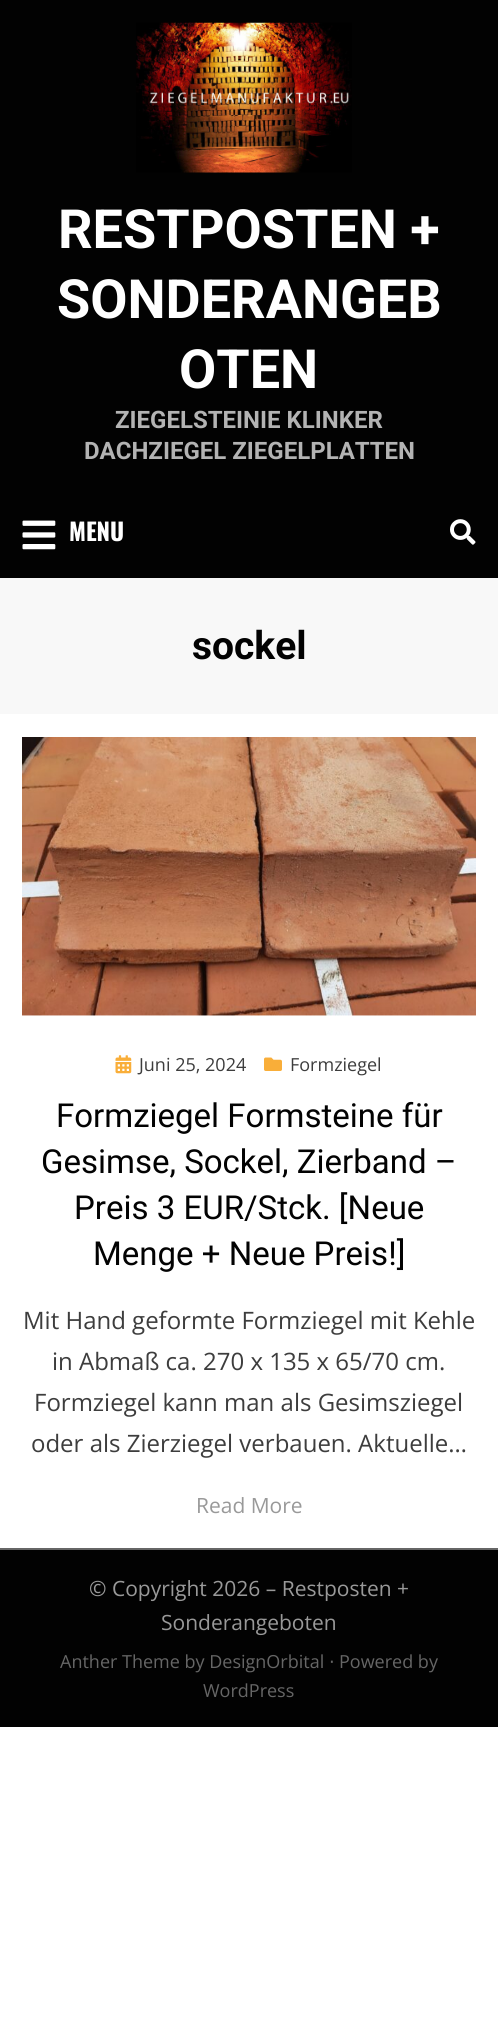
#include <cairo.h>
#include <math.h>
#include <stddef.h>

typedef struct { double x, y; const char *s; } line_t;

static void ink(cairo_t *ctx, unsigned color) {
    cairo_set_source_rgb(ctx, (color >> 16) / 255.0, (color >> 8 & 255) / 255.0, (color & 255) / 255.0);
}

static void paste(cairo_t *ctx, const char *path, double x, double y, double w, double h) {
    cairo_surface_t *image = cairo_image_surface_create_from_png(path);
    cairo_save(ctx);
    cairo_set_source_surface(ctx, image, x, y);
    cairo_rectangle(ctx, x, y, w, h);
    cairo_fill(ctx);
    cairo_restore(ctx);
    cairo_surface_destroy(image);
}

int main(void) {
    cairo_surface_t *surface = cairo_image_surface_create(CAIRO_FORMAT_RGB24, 498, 2018);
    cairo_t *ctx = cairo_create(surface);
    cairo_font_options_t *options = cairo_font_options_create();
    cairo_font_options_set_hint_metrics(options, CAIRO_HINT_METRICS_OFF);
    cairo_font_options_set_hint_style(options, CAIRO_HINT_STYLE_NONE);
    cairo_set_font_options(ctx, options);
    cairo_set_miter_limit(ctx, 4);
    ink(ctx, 0xFFFFFF);
    cairo_paint(ctx);
    ink(ctx, 0x020202);
    cairo_rectangle(ctx, 0, 0, 498, 578);
    cairo_fill(ctx);
    paste(ctx, "media/1.png", 136, 22, 216, 151);
    cairo_select_font_face(ctx, "Roboto", CAIRO_FONT_SLANT_NORMAL, CAIRO_FONT_WEIGHT_BOLD);
    cairo_set_font_size(ctx, 54);
    ink(ctx, 0xFFFFFF);
    {
        static const line_t items[] = {
            {58, 248, "RESTPOSTEN +"},
            {57, 318, "SONDERANGEB"},
            {179, 388, "OTEN"},
        };
        for (size_t i = 0; i < sizeof items / sizeof *items; i++) {
            cairo_move_to(ctx, items[i].x, items[i].y);
            cairo_show_text(ctx, items[i].s);
        }
    }
    cairo_set_font_size(ctx, 24);
    ink(ctx, 0xB3B3B3);
    cairo_move_to(ctx, 115, 428);
    cairo_show_text(ctx, "ZIEGELSTEINIE KLINKER");
    cairo_move_to(ctx, 84, 459);
    cairo_show_text(ctx, "DACHZIEGEL ZIEGELPLATTEN");
    paste(ctx, "media/2.png", 22, 520, 34, 30);
    cairo_select_font_face(ctx, "Oswald", CAIRO_FONT_SLANT_NORMAL, CAIRO_FONT_WEIGHT_BOLD);
    ink(ctx, 0xFFFFFF);
    cairo_move_to(ctx, 69, 541);
    cairo_show_text(ctx, "MENU");
    paste(ctx, "media/3.png", 450, 519, 26, 26);
    ink(ctx, 0xF8F8F8);
    cairo_rectangle(ctx, 0, 578, 498, 136);
    cairo_fill(ctx);
    cairo_select_font_face(ctx, "Roboto", CAIRO_FONT_SLANT_NORMAL, CAIRO_FONT_WEIGHT_BOLD);
    cairo_set_font_size(ctx, 39);
    ink(ctx, 0x020202);
    cairo_move_to(ctx, 192, 659);
    cairo_show_text(ctx, "sockel");
    paste(ctx, "media/4.png", 22, 737, 454, 279);
    paste(ctx, "media/5.png", 115, 1055, 17, 19);
    cairo_select_font_face(ctx, "Open Sans", CAIRO_FONT_SLANT_NORMAL, CAIRO_FONT_WEIGHT_NORMAL);
    cairo_set_font_size(ctx, 18);
    ink(ctx, 0x3D3D3D);
    cairo_move_to(ctx, 139, 1071);
    cairo_show_text(ctx, "Juni 25, 2024");
    paste(ctx, "media/6.png", 264, 1057, 18, 14);
    cairo_move_to(ctx, 290, 1071);
    cairo_show_text(ctx, "Formziegel");
    cairo_select_font_face(ctx, "Roboto", CAIRO_FONT_SLANT_NORMAL, CAIRO_FONT_WEIGHT_NORMAL);
    cairo_set_font_size(ctx, 33);
    ink(ctx, 0x020202);
    {
        static const line_t items[] = {
            {56, 1127, "Formziegel Formsteine für"},
            {41, 1173, "Gesimse, Sockel, Zierband –"},
            {74, 1219, "Preis 3 EUR/Stck. [Neue"},
            {93, 1265, "Menge + Neue Preis!]"},
        };
        for (size_t i = 0; i < sizeof items / sizeof *items; i++) {
            cairo_move_to(ctx, items[i].x, items[i].y);
            cairo_show_text(ctx, items[i].s);
        }
    }
    cairo_select_font_face(ctx, "Open Sans", CAIRO_FONT_SLANT_NORMAL, CAIRO_FONT_WEIGHT_NORMAL);
    cairo_set_font_size(ctx, 24);
    ink(ctx, 0x3D3D3D);
    {
        static const line_t items[] = {
            {23, 1329, "Mit Hand geformte Formziegel mit Kehle"},
            {52, 1370, "in Abmaß ca. 270 x 135 x 65/70 cm."},
            {34, 1411, "Formziegel kann man als Gesimsziegel"},
            {31, 1452, "oder als Zierziegel verbauen. Aktuelle…"},
        };
        for (size_t i = 0; i < sizeof items / sizeof *items; i++) {
            cairo_move_to(ctx, items[i].x, items[i].y);
            cairo_show_text(ctx, items[i].s);
        }
    }
    cairo_set_font_size(ctx, 21);
    ink(ctx, 0x999999);
    cairo_move_to(ctx, 196, 1513);
    cairo_show_text(ctx, "Read More");
    ink(ctx, 0x020202);
    cairo_rectangle(ctx, 0, 1550, 498, 177);
    cairo_fill(ctx);
    ink(ctx, 0x666666);
    cairo_rectangle(ctx, 0, 1548, 498, 2);
    cairo_fill(ctx);
    ink(ctx, 0x999999);
    cairo_move_to(ctx, 89, 1596);
    cairo_show_text(ctx, "© Copyright 2026 – Restposten +");
    cairo_move_to(ctx, 161, 1630);
    cairo_show_text(ctx, "Sonderangeboten");
    cairo_set_font_size(ctx, 18);
    ink(ctx, 0x666666);
    cairo_move_to(ctx, 60, 1668);
    cairo_show_text(ctx, "Anther Theme by DesignOrbital");
    cairo_select_font_face(ctx, "DejaVu Sans", CAIRO_FONT_SLANT_NORMAL, CAIRO_FONT_WEIGHT_NORMAL);
    cairo_move_to(ctx, 329, 1668);
    cairo_show_text(ctx, "⋅");
    cairo_select_font_face(ctx, "Open Sans", CAIRO_FONT_SLANT_NORMAL, CAIRO_FONT_WEIGHT_NORMAL);
    cairo_move_to(ctx, 339, 1668);
    cairo_show_text(ctx, "Powered by");
    cairo_move_to(ctx, 203, 1697);
    cairo_show_text(ctx, "WordPress");
    cairo_surface_write_to_png(surface, "image.png");
    cairo_font_options_destroy(options);
    cairo_destroy(ctx);
    cairo_surface_destroy(surface);
    return 0;
}
